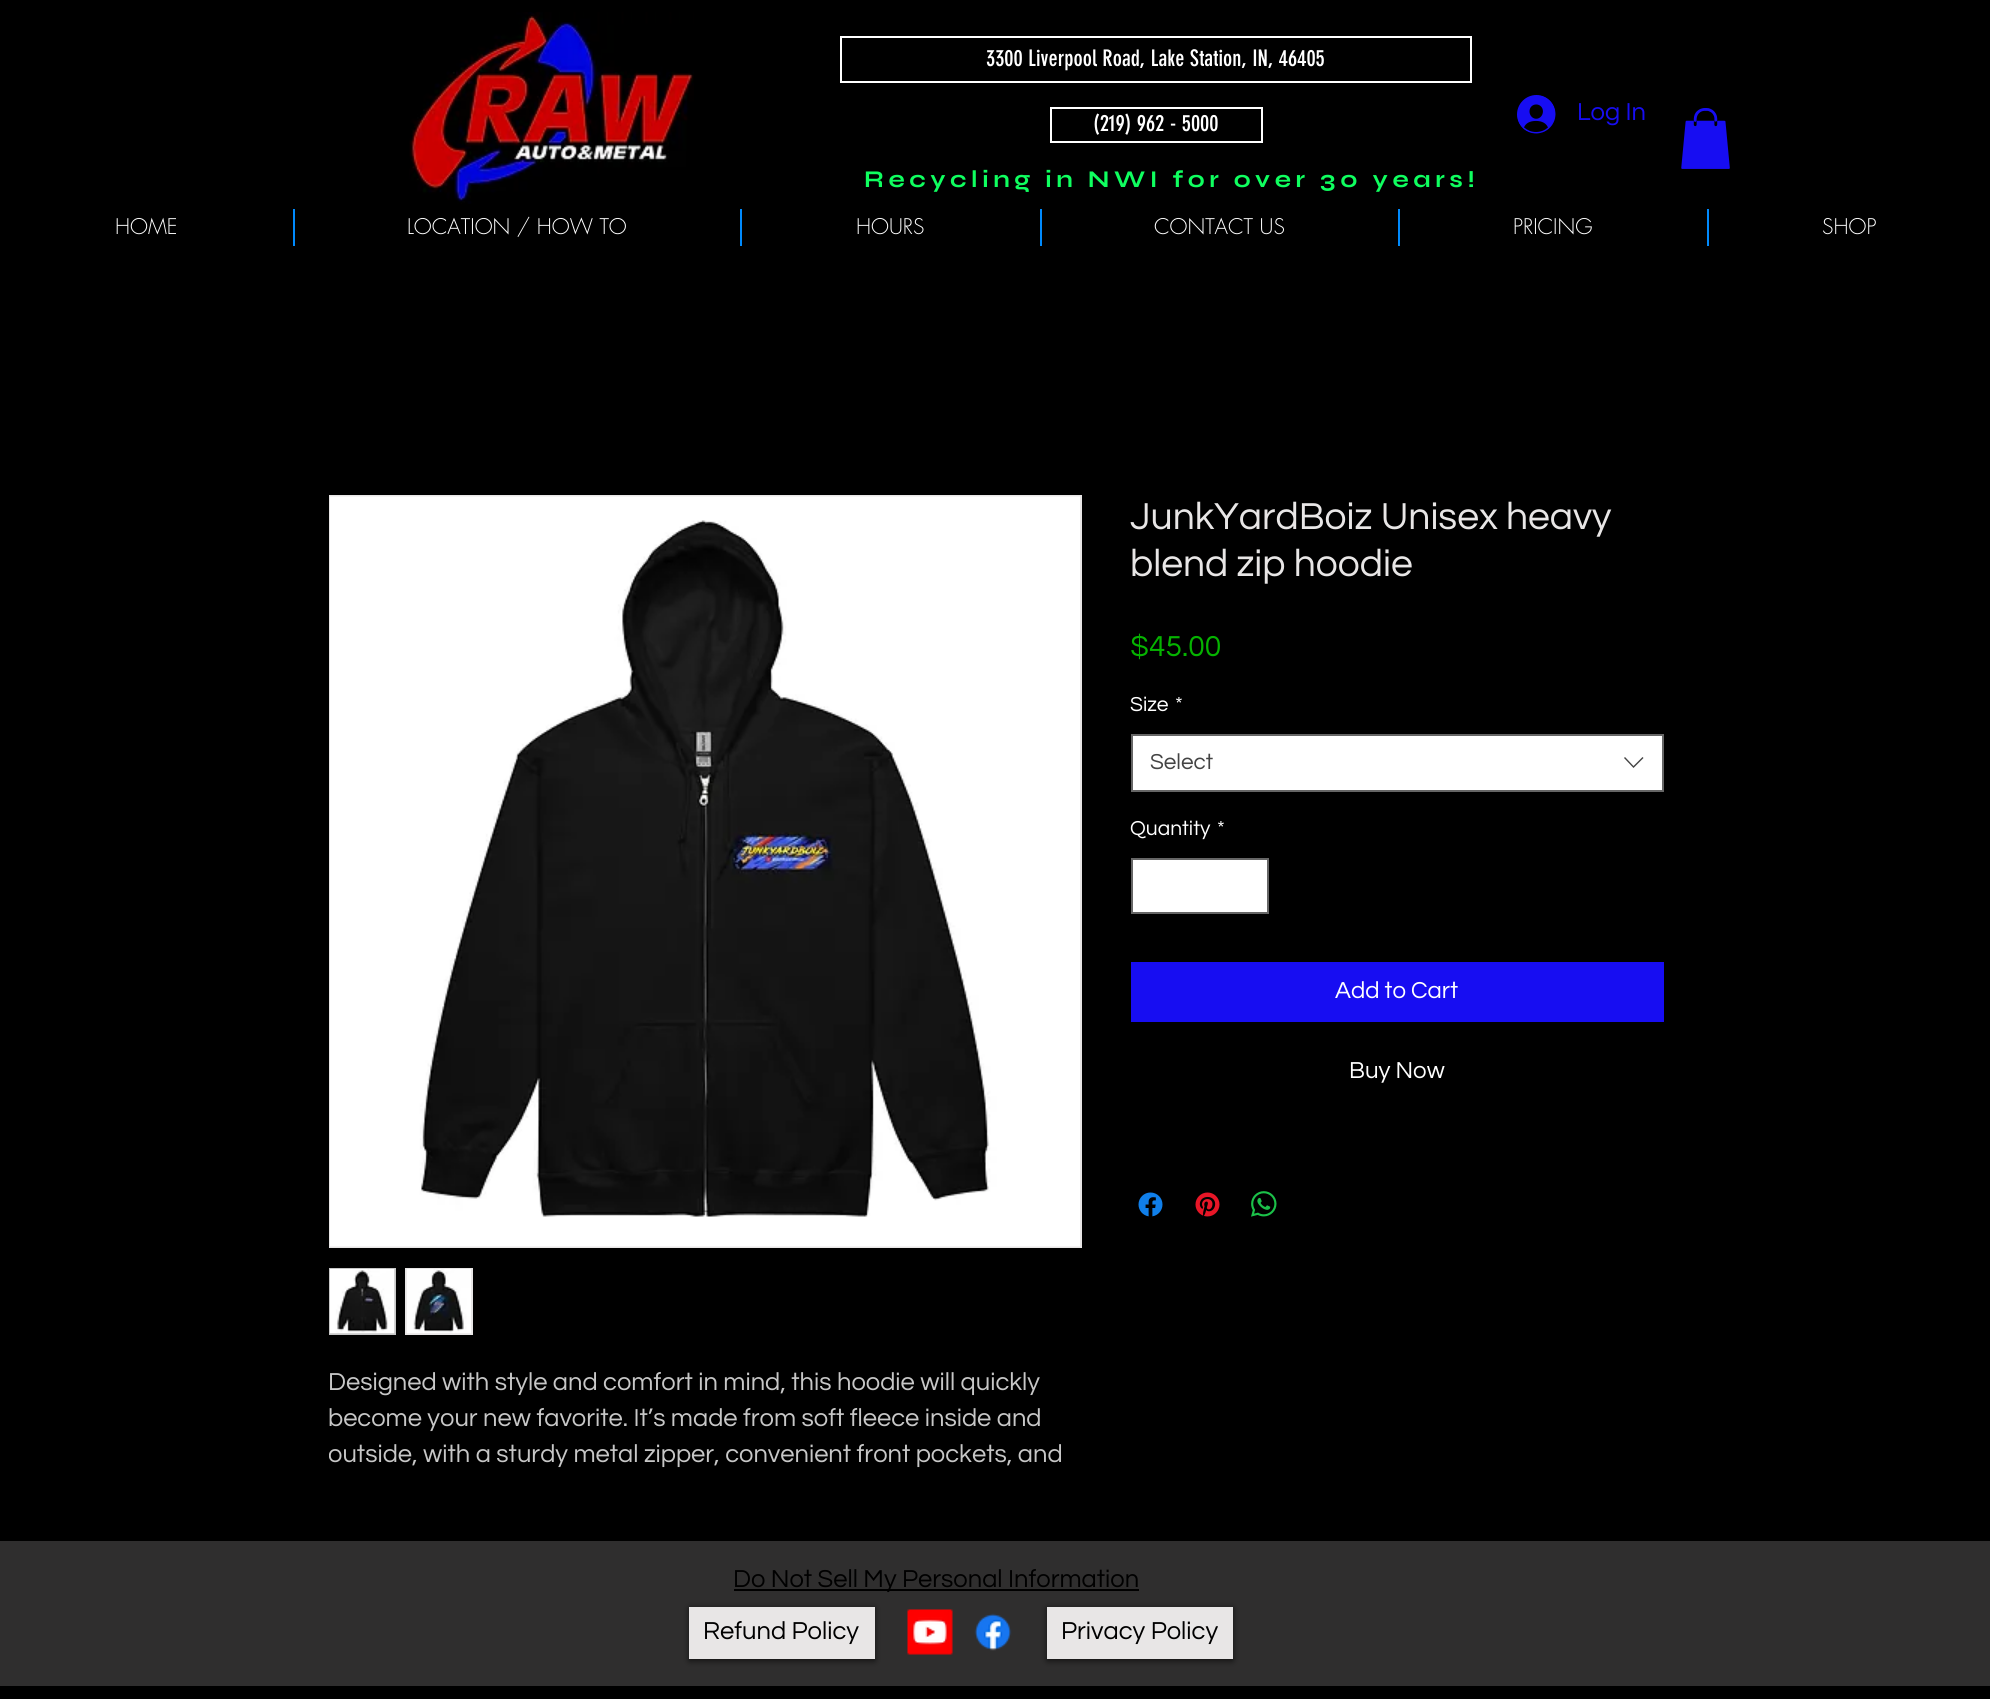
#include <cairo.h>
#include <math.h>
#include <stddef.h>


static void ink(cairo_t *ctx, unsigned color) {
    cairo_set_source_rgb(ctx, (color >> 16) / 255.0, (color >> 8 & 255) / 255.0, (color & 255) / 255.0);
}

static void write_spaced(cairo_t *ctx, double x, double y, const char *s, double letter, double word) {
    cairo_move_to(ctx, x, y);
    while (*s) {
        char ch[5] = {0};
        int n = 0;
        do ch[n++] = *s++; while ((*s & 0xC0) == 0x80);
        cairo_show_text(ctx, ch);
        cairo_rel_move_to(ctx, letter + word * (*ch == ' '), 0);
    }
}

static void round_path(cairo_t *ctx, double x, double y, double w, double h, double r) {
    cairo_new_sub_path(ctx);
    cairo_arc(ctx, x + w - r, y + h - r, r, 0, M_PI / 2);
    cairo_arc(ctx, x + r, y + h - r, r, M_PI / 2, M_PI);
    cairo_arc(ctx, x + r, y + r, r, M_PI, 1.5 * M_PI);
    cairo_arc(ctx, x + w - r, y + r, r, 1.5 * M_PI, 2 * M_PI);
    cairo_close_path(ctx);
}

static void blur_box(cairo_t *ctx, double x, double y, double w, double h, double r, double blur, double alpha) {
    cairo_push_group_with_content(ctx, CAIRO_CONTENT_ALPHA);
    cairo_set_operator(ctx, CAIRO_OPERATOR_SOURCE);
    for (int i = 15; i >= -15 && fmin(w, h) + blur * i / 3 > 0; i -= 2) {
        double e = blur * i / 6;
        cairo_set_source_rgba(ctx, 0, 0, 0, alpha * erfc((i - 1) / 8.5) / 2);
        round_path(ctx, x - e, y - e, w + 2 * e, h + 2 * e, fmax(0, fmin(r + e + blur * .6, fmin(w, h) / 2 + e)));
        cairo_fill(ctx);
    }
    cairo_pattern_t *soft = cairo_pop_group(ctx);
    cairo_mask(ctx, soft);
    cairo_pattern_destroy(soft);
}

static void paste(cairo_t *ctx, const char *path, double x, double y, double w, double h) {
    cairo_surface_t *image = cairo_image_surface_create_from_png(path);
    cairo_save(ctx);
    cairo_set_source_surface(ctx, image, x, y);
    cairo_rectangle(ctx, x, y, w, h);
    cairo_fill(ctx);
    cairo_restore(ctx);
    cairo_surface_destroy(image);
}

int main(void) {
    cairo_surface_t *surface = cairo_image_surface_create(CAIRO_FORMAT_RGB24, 1990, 1699);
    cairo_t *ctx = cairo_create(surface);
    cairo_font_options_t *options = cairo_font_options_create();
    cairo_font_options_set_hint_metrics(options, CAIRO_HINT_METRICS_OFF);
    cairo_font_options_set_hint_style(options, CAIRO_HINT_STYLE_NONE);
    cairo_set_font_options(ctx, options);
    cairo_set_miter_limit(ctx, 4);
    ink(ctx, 0x000000);
    cairo_paint(ctx);
    paste(ctx, "media/1.png", 409, 12, 285, 192);
    cairo_rectangle(ctx, 841, 37, 630, 45);
    ink(ctx, 0xFFFFFF);
    cairo_stroke(ctx);
    cairo_select_font_face(ctx, "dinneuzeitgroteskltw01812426", CAIRO_FONT_SLANT_NORMAL, CAIRO_FONT_WEIGHT_NORMAL);
    cairo_set_font_size(ctx, 22.5);
    cairo_move_to(ctx, 986, 66);
    cairo_show_text(ctx, "3300 Liverpool Road, Lake Station, IN, 46405");
    cairo_rectangle(ctx, 1051, 108, 211, 34);
    cairo_stroke(ctx);
    cairo_move_to(ctx, 1093, 131);
    cairo_show_text(ctx, "(219) 962 - 5000");
    paste(ctx, "media/2.png", 1517, 95, 39, 39);
    cairo_select_font_face(ctx, "Questrial", CAIRO_FONT_SLANT_NORMAL, CAIRO_FONT_WEIGHT_NORMAL);
    cairo_set_font_size(ctx, 25.5);
    ink(ctx, 0x170DF2);
    cairo_move_to(ctx, 1577, 120);
    cairo_show_text(ctx, "Log In");
    paste(ctx, "media/3.png", 1681, 108, 49, 61);
    cairo_select_font_face(ctx, "Syne", CAIRO_FONT_SLANT_NORMAL, CAIRO_FONT_WEIGHT_BOLD);
    cairo_set_font_size(ctx, 24);
    ink(ctx, 0x0FFF5F);
    write_spaced(ctx, 864, 187, "Recycling in NWI for over 30 years!", 4.55, 0);
    cairo_select_font_face(ctx, "futura Light", CAIRO_FONT_SLANT_NORMAL, CAIRO_FONT_WEIGHT_NORMAL);
    cairo_set_font_size(ctx, 21);
    ink(ctx, 0xFFFFFF);
    cairo_move_to(ctx, 115, 234);
    cairo_show_text(ctx, "HOME");
    ink(ctx, 0x008AFC);
    cairo_rectangle(ctx, 293, 209, 2, 37);
    cairo_fill(ctx);
    ink(ctx, 0xFFFFFF);
    cairo_move_to(ctx, 407, 234);
    cairo_show_text(ctx, "LOCATION / HOW TO");
    ink(ctx, 0x008AFC);
    cairo_rectangle(ctx, 740, 209, 2, 37);
    cairo_fill(ctx);
    ink(ctx, 0xFFFFFF);
    cairo_move_to(ctx, 856, 234);
    cairo_show_text(ctx, "HOURS");
    ink(ctx, 0x008AFC);
    cairo_rectangle(ctx, 1040, 209, 2, 37);
    cairo_fill(ctx);
    ink(ctx, 0xFFFFFF);
    cairo_move_to(ctx, 1154, 234);
    cairo_show_text(ctx, "CONTACT US");
    ink(ctx, 0x008AFC);
    cairo_rectangle(ctx, 1398, 209, 2, 37);
    cairo_fill(ctx);
    ink(ctx, 0xFFFFFF);
    cairo_move_to(ctx, 1513, 234);
    cairo_show_text(ctx, "PRICING");
    ink(ctx, 0x008AFC);
    cairo_rectangle(ctx, 1707, 209, 2, 37);
    cairo_fill(ctx);
    ink(ctx, 0xFFFFFF);
    cairo_move_to(ctx, 1822, 234);
    cairo_show_text(ctx, "SHOP");
    cairo_select_font_face(ctx, "Questrial", CAIRO_FONT_SLANT_NORMAL, CAIRO_FONT_WEIGHT_NORMAL);
    cairo_set_font_size(ctx, 39);
    ink(ctx, 0xE8E6E6);
    cairo_move_to(ctx, 1130, 529);
    cairo_show_text(ctx, "JunkYardBoiz Unisex heavy");
    cairo_move_to(ctx, 1130, 576);
    cairo_show_text(ctx, "blend zip hoodie");
    cairo_set_font_size(ctx, 30);
    ink(ctx, 0x05B300);
    cairo_move_to(ctx, 1130, 656);
    cairo_show_text(ctx, "$45.00");
    cairo_set_font_size(ctx, 21);
    ink(ctx, 0xFFFFFF);
    cairo_move_to(ctx, 1130, 711);
    cairo_show_text(ctx, "Size");
    cairo_move_to(ctx, 1175, 711);
    cairo_show_text(ctx, "*");
    cairo_rectangle(ctx, 1132, 735, 531, 56);
    cairo_fill_preserve(ctx);
    ink(ctx, 0x666666);
    cairo_stroke(ctx);
    cairo_set_font_size(ctx, 22.5);
    ink(ctx, 0x444444);
    cairo_move_to(ctx, 1150, 769);
    cairo_show_text(ctx, "Select");
    cairo_set_fill_rule(ctx, CAIRO_FILL_RULE_EVEN_ODD);
    cairo_new_path(ctx);
    cairo_move_to(ctx, 1642.5, 757);
    cairo_line_to(ctx, 1643.5, 758);
    cairo_line_to(ctx, 1633.5, 768);
    cairo_line_to(ctx, 1624, 758);
    cairo_line_to(ctx, 1625, 757);
    cairo_line_to(ctx, 1633.5, 766);
    cairo_close_path(ctx);
    cairo_fill(ctx);
    cairo_set_font_size(ctx, 21);
    ink(ctx, 0xFFFFFF);
    cairo_move_to(ctx, 1130, 835);
    cairo_show_text(ctx, "Quantity");
    cairo_move_to(ctx, 1217, 835);
    cairo_show_text(ctx, "*");
    cairo_rectangle(ctx, 1132, 859, 136, 54);
    cairo_fill_preserve(ctx);
    ink(ctx, 0x666666);
    cairo_stroke(ctx);
    ink(ctx, 0x170DF2);
    cairo_rectangle(ctx, 1131, 962, 533, 60);
    cairo_fill(ctx);
    cairo_set_font_size(ctx, 24);
    ink(ctx, 0xFFFFFF);
    cairo_move_to(ctx, 1335, 998);
    cairo_show_text(ctx, "Add to Cart");
    cairo_move_to(ctx, 1349, 1078);
    cairo_show_text(ctx, "Buy Now");
    paste(ctx, "media/4.png", 1138, 1192, 25, 25);
    paste(ctx, "media/5.png", 1195, 1192, 25, 25);
    paste(ctx, "media/6.png", 1251, 1191, 26, 26);
    cairo_rectangle(ctx, 330, 496, 751, 751);
    ink(ctx, 0xE8E6E6);
    cairo_stroke(ctx);
    paste(ctx, "media/7.png", 330, 496, 750, 751);
    cairo_rectangle(ctx, 330, 1269, 65, 65);
    ink(ctx, 0xC7C7C7);
    cairo_stroke(ctx);
    paste(ctx, "media/8.png", 330, 1269, 65, 65);
    ink(ctx, 0xE8E6E6);
    cairo_rectangle(ctx, 405, 1268, 68, 67);
    cairo_fill(ctx);
    paste(ctx, "media/9.png", 406, 1269, 65, 65);
    cairo_set_font_size(ctx, 25.5);
    ink(ctx, 0xC7C7C7);
    cairo_move_to(ctx, 328, 1390);
    cairo_show_text(ctx, "Designed with style and comfort in mind, this hoodie will quickly");
    cairo_move_to(ctx, 328, 1426);
    cairo_show_text(ctx, "become your new favorite. It’s made from soft fleece inside and");
    cairo_save(ctx);
    cairo_set_fill_rule(ctx, CAIRO_FILL_RULE_WINDING);
    cairo_rectangle(ctx, 329, 1365, 750, 108);
    cairo_clip(ctx);
    cairo_move_to(ctx, 328, 1462);
    cairo_show_text(ctx, "outside, with a sturdy metal zipper, convenient front pockets, and");
    cairo_restore(ctx);
    ink(ctx, 0x2F2E2E);
    cairo_rectangle(ctx, 0, 1541, 1990, 145);
    cairo_fill(ctx);
    ink(ctx, 0x000000);
    cairo_rectangle(ctx, 734, 1589, 405, 2);
    cairo_fill(ctx);
    cairo_move_to(ctx, 733, 1587);
    cairo_show_text(ctx, "Do Not Sell My Personal Information");
    ink(ctx, 0x000000);
    blur_box(ctx, 689, 1608, 186, 53, 0, 3, 0.6);
    ink(ctx, 0xE8E6E6);
    cairo_rectangle(ctx, 689, 1607, 186, 52);
    cairo_fill(ctx);
    ink(ctx, 0x000000);
    cairo_move_to(ctx, 703, 1639);
    cairo_show_text(ctx, "Refund Policy");
    paste(ctx, "media/10.png", 907, 1609, 46, 46);
    paste(ctx, "media/11.png", 974, 1613, 38, 38);
    ink(ctx, 0x000000);
    blur_box(ctx, 1047, 1608, 186, 53, 0, 3, 0.6);
    ink(ctx, 0xE8E6E6);
    cairo_rectangle(ctx, 1047, 1607, 186, 52);
    cairo_fill(ctx);
    ink(ctx, 0x000000);
    cairo_move_to(ctx, 1061, 1639);
    cairo_show_text(ctx, "Privacy Policy");
    cairo_surface_write_to_png(surface, "image.png");
    cairo_font_options_destroy(options);
    cairo_destroy(ctx);
    cairo_surface_destroy(surface);
    return 0;
}
